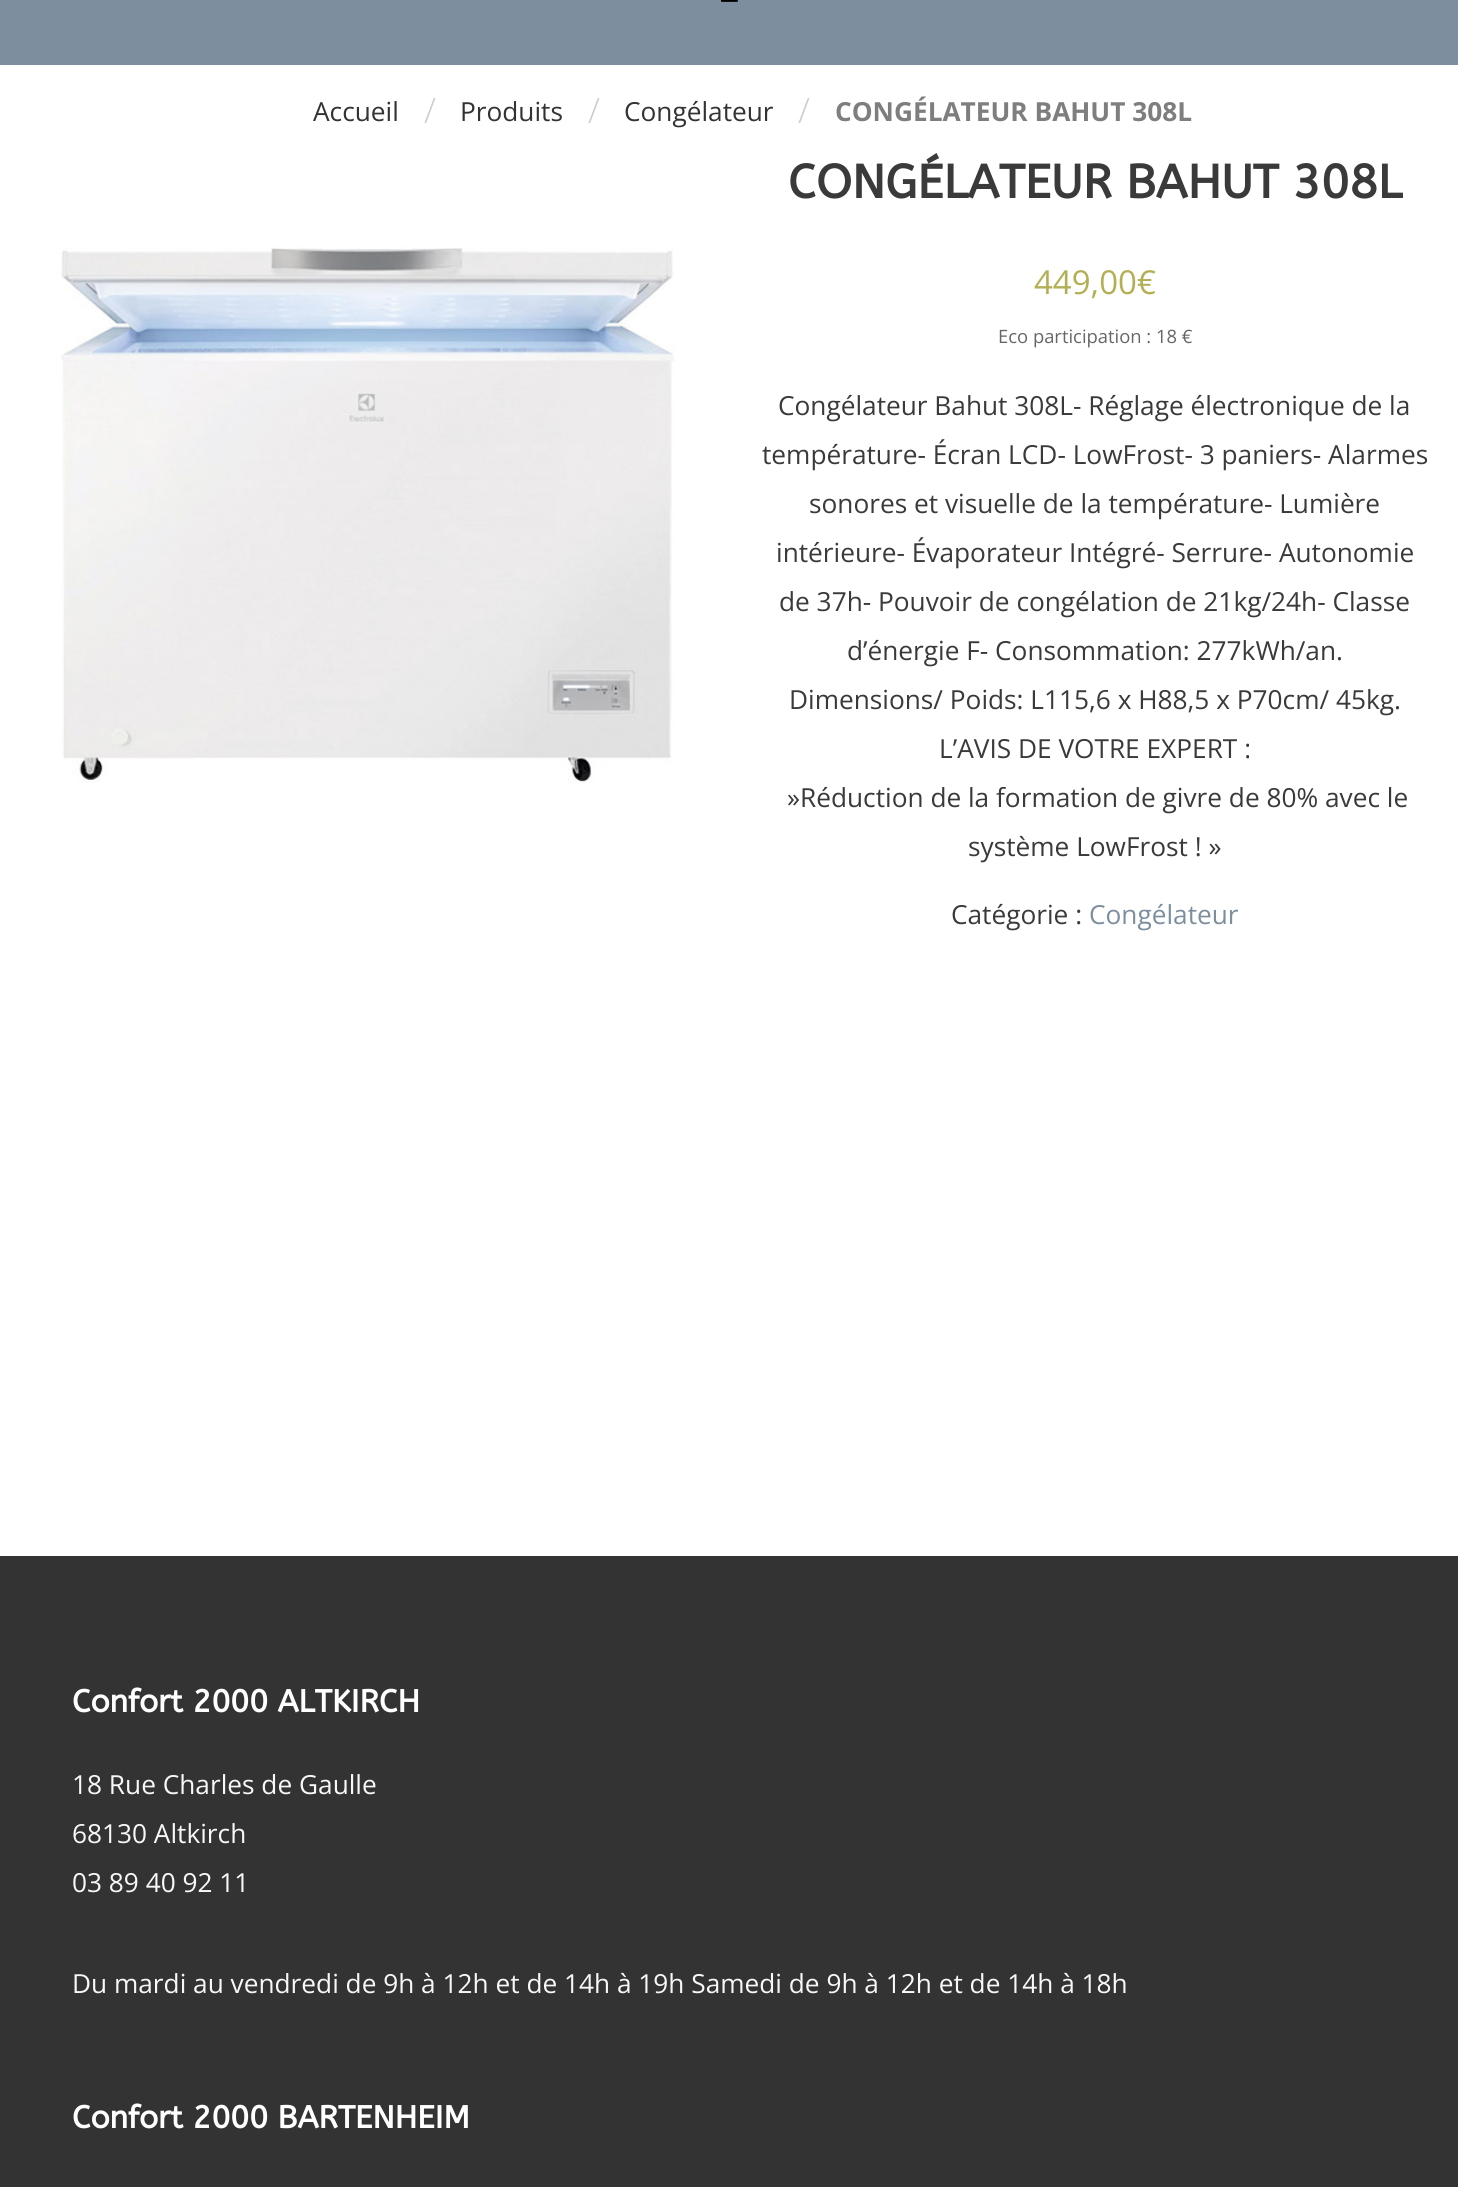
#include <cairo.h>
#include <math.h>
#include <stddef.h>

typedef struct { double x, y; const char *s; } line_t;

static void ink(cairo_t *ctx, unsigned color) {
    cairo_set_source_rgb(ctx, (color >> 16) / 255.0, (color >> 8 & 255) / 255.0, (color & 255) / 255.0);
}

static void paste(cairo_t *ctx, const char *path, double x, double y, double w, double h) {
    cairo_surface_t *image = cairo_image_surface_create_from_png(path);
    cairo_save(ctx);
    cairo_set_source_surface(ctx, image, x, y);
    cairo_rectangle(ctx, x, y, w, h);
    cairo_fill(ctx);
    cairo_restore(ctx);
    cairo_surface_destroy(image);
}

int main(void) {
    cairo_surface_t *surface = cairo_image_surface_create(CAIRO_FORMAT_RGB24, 1458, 2187);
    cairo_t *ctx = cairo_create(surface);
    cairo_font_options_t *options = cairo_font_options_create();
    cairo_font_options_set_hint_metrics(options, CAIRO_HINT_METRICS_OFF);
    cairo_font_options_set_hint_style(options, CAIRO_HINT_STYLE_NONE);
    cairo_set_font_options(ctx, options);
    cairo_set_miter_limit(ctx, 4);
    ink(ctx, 0xFFFFFF);
    cairo_paint(ctx);
    ink(ctx, 0x7D8E9E);
    cairo_rectangle(ctx, 0, 0, 1458, 65);
    cairo_fill(ctx);
    paste(ctx, "media/1.png", 721, 0, 17, 2);
    cairo_select_font_face(ctx, "Open Sans", CAIRO_FONT_SLANT_NORMAL, CAIRO_FONT_WEIGHT_NORMAL);
    cairo_set_font_size(ctx, 26.25);
    ink(ctx, 0x333333);
    cairo_move_to(ctx, 313, 121);
    cairo_show_text(ctx, "Accueil");
    cairo_select_font_face(ctx, "Open Sans Light", CAIRO_FONT_SLANT_NORMAL, CAIRO_FONT_WEIGHT_NORMAL);
    cairo_set_font_size(ctx, 35);
    ink(ctx, 0xCCCCCC);
    cairo_move_to(ctx, 424, 123);
    cairo_show_text(ctx, "/");
    cairo_select_font_face(ctx, "Open Sans", CAIRO_FONT_SLANT_NORMAL, CAIRO_FONT_WEIGHT_NORMAL);
    cairo_set_font_size(ctx, 26.25);
    ink(ctx, 0x333333);
    cairo_move_to(ctx, 460, 121);
    cairo_show_text(ctx, "Produits");
    cairo_select_font_face(ctx, "Open Sans Light", CAIRO_FONT_SLANT_NORMAL, CAIRO_FONT_WEIGHT_NORMAL);
    cairo_set_font_size(ctx, 35);
    ink(ctx, 0xCCCCCC);
    cairo_move_to(ctx, 588, 123);
    cairo_show_text(ctx, "/");
    cairo_select_font_face(ctx, "Open Sans", CAIRO_FONT_SLANT_NORMAL, CAIRO_FONT_WEIGHT_NORMAL);
    cairo_set_font_size(ctx, 26.25);
    ink(ctx, 0x333333);
    cairo_move_to(ctx, 624, 121);
    cairo_show_text(ctx, "Congélateur");
    cairo_select_font_face(ctx, "Open Sans Light", CAIRO_FONT_SLANT_NORMAL, CAIRO_FONT_WEIGHT_NORMAL);
    cairo_set_font_size(ctx, 35);
    ink(ctx, 0xCCCCCC);
    cairo_move_to(ctx, 798, 123);
    cairo_show_text(ctx, "/");
    cairo_select_font_face(ctx, "Open Sans", CAIRO_FONT_SLANT_NORMAL, CAIRO_FONT_WEIGHT_BOLD);
    cairo_set_font_size(ctx, 26.25);
    ink(ctx, 0x7E7E7E);
    cairo_move_to(ctx, 835, 121);
    cairo_show_text(ctx, "CONGÉLATEUR BAHUT 308L");
    paste(ctx, "media/2.png", 61, 246, 614, 537);
    cairo_select_font_face(ctx, "ABeeZee", CAIRO_FONT_SLANT_NORMAL, CAIRO_FONT_WEIGHT_BOLD);
    cairo_set_font_size(ctx, 47.25);
    ink(ctx, 0x3A3A3A);
    cairo_move_to(ctx, 788, 198);
    cairo_show_text(ctx, "CONGÉLATEUR BAHUT 308L");
    cairo_select_font_face(ctx, "Open Sans", CAIRO_FONT_SLANT_NORMAL, CAIRO_FONT_WEIGHT_NORMAL);
    cairo_set_font_size(ctx, 33);
    ink(ctx, 0xB3AF54);
    cairo_move_to(ctx, 1034, 294);
    cairo_show_text(ctx, "449,00€");
    cairo_set_font_size(ctx, 18.4);
    ink(ctx, 0x666666);
    cairo_move_to(ctx, 998, 343);
    cairo_show_text(ctx, "Eco participation : 18 €");
    cairo_set_font_size(ctx, 26.25);
    ink(ctx, 0x3A3A3A);
    {
        static const line_t items[] = {
            {778, 415, "Congélateur Bahut 308L- Réglage électronique de la"},
            {762, 464, "température- Écran LCD- LowFrost- 3 paniers- Alarmes"},
            {809, 513, "sonores et visuelle de la température- Lumière"},
            {776, 562, "intérieure- Évaporateur Intégré- Serrure- Autonomie"},
            {779, 611, "de 37h- Pouvoir de congélation de 21kg/24h- Classe"},
            {847, 660, "d’énergie F- Consommation: 277kWh/an."},
            {789, 709, "Dimensions/ Poids: L115,6 x H88,5 x P70cm/ 45kg."},
            {939, 758, "L’AVIS DE VOTRE EXPERT :"},
            {787, 807, "»Réduction de la formation de givre de 80% avec le"},
            {968, 856, "système LowFrost ! »"},
            {951, 924, "Catégorie :"},
        };
        for (size_t i = 0; i < sizeof items / sizeof *items; i++) {
            cairo_move_to(ctx, items[i].x, items[i].y);
            cairo_show_text(ctx, items[i].s);
        }
    }
    ink(ctx, 0x7D8E9E);
    cairo_move_to(ctx, 1089, 924);
    cairo_show_text(ctx, "Congélateur");
    ink(ctx, 0x333333);
    cairo_rectangle(ctx, 0, 1556, 1458, 631);
    cairo_fill(ctx);
    cairo_select_font_face(ctx, "ABeeZee", CAIRO_FONT_SLANT_NORMAL, CAIRO_FONT_WEIGHT_BOLD);
    cairo_set_font_size(ctx, 31.5);
    ink(ctx, 0xFFFFFF);
    cairo_move_to(ctx, 72, 1712);
    cairo_show_text(ctx, "Confort 2000 ALTKIRCH");
    cairo_select_font_face(ctx, "Open Sans", CAIRO_FONT_SLANT_NORMAL, CAIRO_FONT_WEIGHT_NORMAL);
    cairo_set_font_size(ctx, 26.25);
    ink(ctx, 0xF8F8F8);
    {
        static const line_t items[] = {
            {72, 1794, "18 Rue Charles de Gaulle"},
            {72, 1843, "68130 Altkirch"},
            {72, 1892, "03 89 40 92 11"},
            {72, 1993, "Du mardi au vendredi de 9h à 12h et de 14h à 19h Samedi de 9h à 12h et de 14h à 18h"},
        };
        for (size_t i = 0; i < sizeof items / sizeof *items; i++) {
            cairo_move_to(ctx, items[i].x, items[i].y);
            cairo_show_text(ctx, items[i].s);
        }
    }
    cairo_select_font_face(ctx, "ABeeZee", CAIRO_FONT_SLANT_NORMAL, CAIRO_FONT_WEIGHT_BOLD);
    cairo_set_font_size(ctx, 31.5);
    ink(ctx, 0xFFFFFF);
    cairo_move_to(ctx, 72, 2128);
    cairo_show_text(ctx, "Confort 2000 BARTENHEIM");
    cairo_surface_write_to_png(surface, "image.png");
    cairo_font_options_destroy(options);
    cairo_destroy(ctx);
    cairo_surface_destroy(surface);
    return 0;
}
